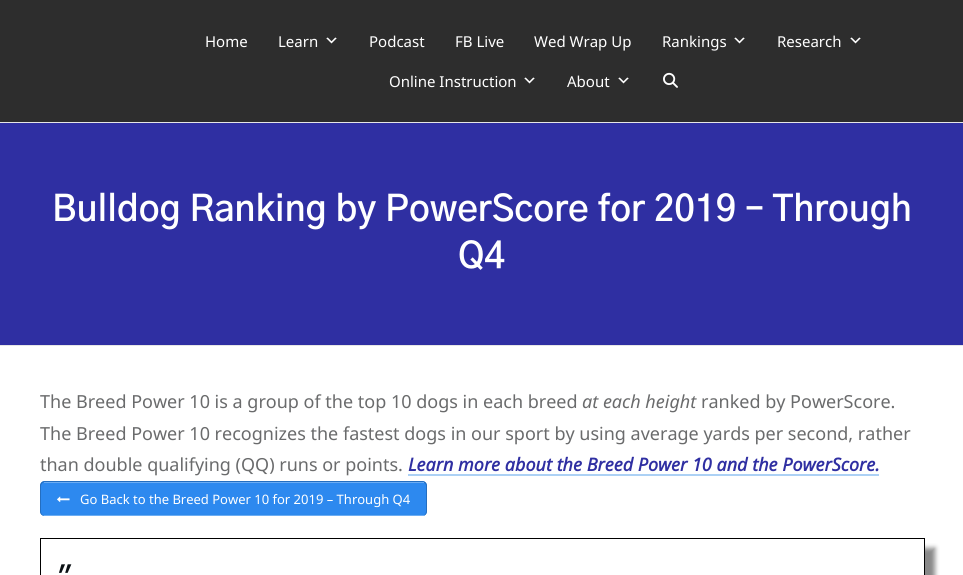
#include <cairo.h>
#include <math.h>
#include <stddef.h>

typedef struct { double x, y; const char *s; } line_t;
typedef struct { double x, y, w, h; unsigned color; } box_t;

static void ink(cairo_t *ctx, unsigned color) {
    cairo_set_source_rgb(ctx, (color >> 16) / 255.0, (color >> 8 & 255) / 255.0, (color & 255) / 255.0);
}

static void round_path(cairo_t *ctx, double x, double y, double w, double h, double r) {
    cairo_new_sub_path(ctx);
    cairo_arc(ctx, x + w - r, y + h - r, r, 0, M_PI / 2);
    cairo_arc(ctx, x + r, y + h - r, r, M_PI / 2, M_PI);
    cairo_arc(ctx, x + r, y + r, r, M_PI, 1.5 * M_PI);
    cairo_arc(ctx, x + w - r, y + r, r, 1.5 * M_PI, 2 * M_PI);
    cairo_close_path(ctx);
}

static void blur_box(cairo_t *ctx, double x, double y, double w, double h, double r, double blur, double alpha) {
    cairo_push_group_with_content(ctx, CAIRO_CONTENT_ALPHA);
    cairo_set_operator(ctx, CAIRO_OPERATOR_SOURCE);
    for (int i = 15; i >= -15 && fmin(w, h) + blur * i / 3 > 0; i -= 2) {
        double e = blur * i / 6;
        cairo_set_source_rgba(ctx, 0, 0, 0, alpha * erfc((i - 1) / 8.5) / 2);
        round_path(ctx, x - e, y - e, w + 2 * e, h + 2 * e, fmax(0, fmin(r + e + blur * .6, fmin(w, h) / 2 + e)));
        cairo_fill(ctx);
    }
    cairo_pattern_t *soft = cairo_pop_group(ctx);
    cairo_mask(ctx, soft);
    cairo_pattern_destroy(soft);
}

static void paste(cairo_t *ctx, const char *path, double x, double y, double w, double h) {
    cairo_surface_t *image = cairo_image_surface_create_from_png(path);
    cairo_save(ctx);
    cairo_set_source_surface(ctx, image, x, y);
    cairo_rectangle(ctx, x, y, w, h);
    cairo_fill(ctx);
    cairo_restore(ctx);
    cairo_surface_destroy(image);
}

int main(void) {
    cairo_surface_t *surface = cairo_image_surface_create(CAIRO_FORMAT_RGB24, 963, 575);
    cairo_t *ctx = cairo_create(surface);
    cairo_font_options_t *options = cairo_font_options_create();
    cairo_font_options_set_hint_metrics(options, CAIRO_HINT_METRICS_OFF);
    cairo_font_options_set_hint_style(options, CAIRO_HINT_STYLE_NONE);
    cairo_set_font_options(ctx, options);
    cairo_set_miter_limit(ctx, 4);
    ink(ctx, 0xFFFFFF);
    cairo_paint(ctx);
    ink(ctx, 0x2D2D2D);
    cairo_rectangle(ctx, 0, 0, 963, 122);
    cairo_fill(ctx);
    cairo_select_font_face(ctx, "Noto Sans", CAIRO_FONT_SLANT_NORMAL, CAIRO_FONT_WEIGHT_NORMAL);
    cairo_set_font_size(ctx, 15);
    ink(ctx, 0xFFFFFF);
    cairo_move_to(ctx, 205, 47);
    cairo_show_text(ctx, "Home");
    cairo_move_to(ctx, 278, 47);
    cairo_show_text(ctx, "Learn");
    paste(ctx, "media/1.png", 326, 37, 11, 7);
    {
        static const line_t items[] = {
            {369, 47, "Podcast"},
            {455, 47, "FB Live"},
            {534, 47, "Wed Wrap Up"},
            {662, 47, "Rankings"},
        };
        for (size_t i = 0; i < sizeof items / sizeof *items; i++) {
            cairo_move_to(ctx, items[i].x, items[i].y);
            cairo_show_text(ctx, items[i].s);
        }
    }
    paste(ctx, "media/1.png", 734, 37, 11, 7);
    cairo_move_to(ctx, 777, 47);
    cairo_show_text(ctx, "Research");
    paste(ctx, "media/1.png", 850, 37, 11, 7);
    cairo_move_to(ctx, 389, 87);
    cairo_show_text(ctx, "Online Instruction");
    paste(ctx, "media/1.png", 524, 77, 11, 7);
    cairo_move_to(ctx, 567, 87);
    cairo_show_text(ctx, "About");
    paste(ctx, "media/1.png", 618, 77, 11, 7);
    paste(ctx, "media/2.png", 663, 72, 15, 16);
    {
        static const box_t items[] = {
            {0, 123, 963, 222, 0x2F2FA2},
            {0, 122, 963, 1, 0xE6E6E6},
            {0, 345, 963, 1, 0xE6E6E6},
        };
        for (size_t i = 0; i < sizeof items / sizeof *items; i++) {
            ink(ctx, items[i].color);
            cairo_rectangle(ctx, items[i].x, items[i].y, items[i].w, items[i].h);
            cairo_fill(ctx);
        }
    }
    cairo_select_font_face(ctx, "Gothic A1 SemiBold", CAIRO_FONT_SLANT_NORMAL, CAIRO_FONT_WEIGHT_NORMAL);
    cairo_set_font_size(ctx, 36);
    ink(ctx, 0xFFFFFF);
    cairo_move_to(ctx, 52, 221);
    cairo_show_text(ctx, "Bulldog Ranking by PowerScore for 2019 – Through");
    cairo_move_to(ctx, 458, 268);
    cairo_show_text(ctx, "Q4");
    cairo_select_font_face(ctx, "Noto Sans", CAIRO_FONT_SLANT_NORMAL, CAIRO_FONT_WEIGHT_NORMAL);
    cairo_set_font_size(ctx, 18);
    ink(ctx, 0x6A6B6C);
    cairo_move_to(ctx, 40, 408);
    cairo_show_text(ctx, "The Breed Power 10 is a group of the top 10 dogs in each breed");
    cairo_select_font_face(ctx, "Noto Sans", CAIRO_FONT_SLANT_ITALIC, CAIRO_FONT_WEIGHT_NORMAL);
    cairo_move_to(ctx, 582, 408);
    cairo_show_text(ctx, "at each height");
    cairo_select_font_face(ctx, "Noto Sans", CAIRO_FONT_SLANT_NORMAL, CAIRO_FONT_WEIGHT_NORMAL);
    {
        static const line_t items[] = {
            {701, 408, "ranked by PowerScore."},
            {40, 440, "The Breed Power 10 recognizes the fastest dogs in our sport by using average yards per second, rather"},
            {40, 471, "than double qualifying (QQ) runs or points."},
        };
        for (size_t i = 0; i < sizeof items / sizeof *items; i++) {
            cairo_move_to(ctx, items[i].x, items[i].y);
            cairo_show_text(ctx, items[i].s);
        }
    }
    cairo_select_font_face(ctx, "Noto Sans", CAIRO_FONT_SLANT_ITALIC, CAIRO_FONT_WEIGHT_BOLD);
    ink(ctx, 0x2F2FA2);
    cairo_move_to(ctx, 408, 471);
    cairo_show_text(ctx, "Learn more about the Breed Power 10 and the PowerScore.");
    ink(ctx, 0xACD1F5);
    cairo_rectangle(ctx, 408, 474, 471, 2);
    cairo_fill(ctx);
    ink(ctx, 0x2D89EF);
    round_path(ctx, 40, 481, 387, 35, 5);
    cairo_fill(ctx);
    cairo_save(ctx);
    round_path(ctx, 40, 481, 387, 35, 5);
    cairo_clip(ctx);
    cairo_set_source_rgba(ctx, 0.184, 0.545, 0.906, 0.4);
    cairo_rectangle(ctx, 40, 514, 387, 2);
    cairo_fill(ctx);
    cairo_restore(ctx);
    ink(ctx, 0x246EC0);
    cairo_set_fill_rule(ctx, CAIRO_FILL_RULE_EVEN_ODD);
    cairo_new_path(ctx);
    cairo_move_to(ctx, 45, 481);
    cairo_line_to(ctx, 422, 481);
    cairo_curve_to(ctx, 425, 481, 427, 483, 427, 486);
    cairo_line_to(ctx, 427, 511);
    cairo_curve_to(ctx, 427, 514, 425, 516, 422, 516);
    cairo_line_to(ctx, 45, 516);
    cairo_curve_to(ctx, 42, 516, 40, 514, 40, 511);
    cairo_line_to(ctx, 40, 486);
    cairo_curve_to(ctx, 40, 483, 42, 481, 45, 481);
    cairo_close_path(ctx);
    cairo_move_to(ctx, 45, 482);
    cairo_line_to(ctx, 422, 482);
    cairo_curve_to(ctx, 424, 482, 426, 484, 426, 486);
    cairo_line_to(ctx, 426, 511);
    cairo_curve_to(ctx, 426, 514, 424, 516, 422, 516);
    cairo_line_to(ctx, 45, 516);
    cairo_curve_to(ctx, 43, 516, 41, 514, 41, 511);
    cairo_line_to(ctx, 41, 486);
    cairo_curve_to(ctx, 41, 484, 43, 482, 45, 482);
    cairo_close_path(ctx);
    cairo_fill(ctx);
    ink(ctx, 0x6CADF4);
    cairo_rectangle(ctx, 44, 482, 380, 1);
    cairo_fill(ctx);
    cairo_rectangle(ctx, 44, 515, 380, 1);
    cairo_fill(ctx);
    paste(ctx, "media/3.png", 57, 496, 13, 6);
    cairo_select_font_face(ctx, "Noto Sans", CAIRO_FONT_SLANT_NORMAL, CAIRO_FONT_WEIGHT_NORMAL);
    cairo_set_font_size(ctx, 13);
    ink(ctx, 0xFFFFFF);
    cairo_move_to(ctx, 80, 504);
    cairo_show_text(ctx, "Go Back to the Breed Power 10 for 2019 – Through Q4");
    cairo_save(ctx);
    cairo_set_fill_rule(ctx, CAIRO_FILL_RULE_WINDING);
    cairo_rectangle(ctx, 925, 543, 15, 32);
    cairo_clip(ctx);
    ink(ctx, 0x888888);
    blur_box(ctx, 50, 548, 885, 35, 0, 2.5, 1);
    cairo_restore(ctx);
    cairo_rectangle(ctx, 40.5, 538.5, 884, 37);
    ink(ctx, 0x000000);
    cairo_set_line_width(ctx, 1);
    cairo_stroke(ctx);
    cairo_select_font_face(ctx, "Gothic A1 SemiBold", CAIRO_FONT_SLANT_NORMAL, CAIRO_FONT_WEIGHT_NORMAL);
    cairo_set_font_size(ctx, 28);
    ink(ctx, 0x0C1115);
    cairo_move_to(ctx, 57, 588);
    cairo_show_text(ctx, "″");
    cairo_surface_write_to_png(surface, "image.png");
    cairo_font_options_destroy(options);
    cairo_destroy(ctx);
    cairo_surface_destroy(surface);
    return 0;
}
